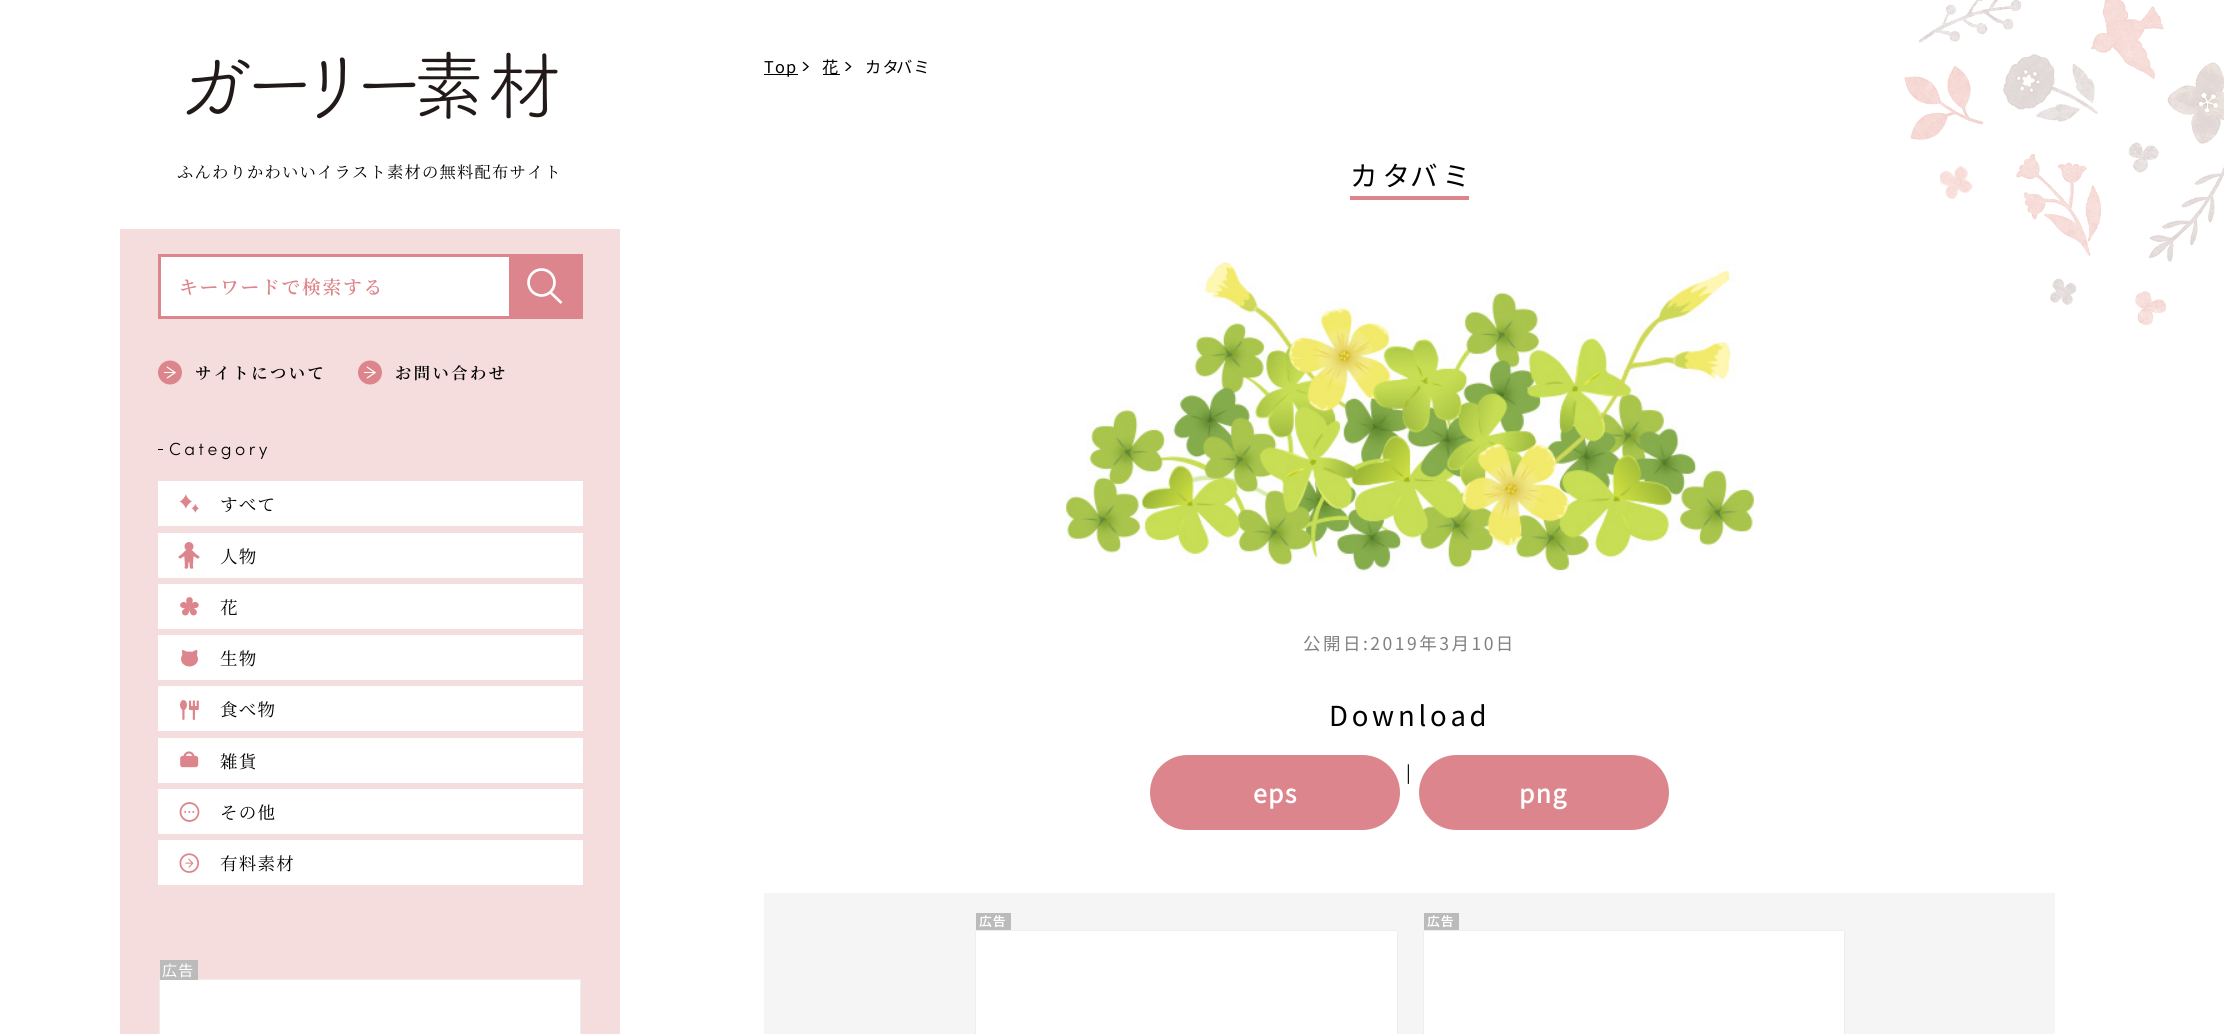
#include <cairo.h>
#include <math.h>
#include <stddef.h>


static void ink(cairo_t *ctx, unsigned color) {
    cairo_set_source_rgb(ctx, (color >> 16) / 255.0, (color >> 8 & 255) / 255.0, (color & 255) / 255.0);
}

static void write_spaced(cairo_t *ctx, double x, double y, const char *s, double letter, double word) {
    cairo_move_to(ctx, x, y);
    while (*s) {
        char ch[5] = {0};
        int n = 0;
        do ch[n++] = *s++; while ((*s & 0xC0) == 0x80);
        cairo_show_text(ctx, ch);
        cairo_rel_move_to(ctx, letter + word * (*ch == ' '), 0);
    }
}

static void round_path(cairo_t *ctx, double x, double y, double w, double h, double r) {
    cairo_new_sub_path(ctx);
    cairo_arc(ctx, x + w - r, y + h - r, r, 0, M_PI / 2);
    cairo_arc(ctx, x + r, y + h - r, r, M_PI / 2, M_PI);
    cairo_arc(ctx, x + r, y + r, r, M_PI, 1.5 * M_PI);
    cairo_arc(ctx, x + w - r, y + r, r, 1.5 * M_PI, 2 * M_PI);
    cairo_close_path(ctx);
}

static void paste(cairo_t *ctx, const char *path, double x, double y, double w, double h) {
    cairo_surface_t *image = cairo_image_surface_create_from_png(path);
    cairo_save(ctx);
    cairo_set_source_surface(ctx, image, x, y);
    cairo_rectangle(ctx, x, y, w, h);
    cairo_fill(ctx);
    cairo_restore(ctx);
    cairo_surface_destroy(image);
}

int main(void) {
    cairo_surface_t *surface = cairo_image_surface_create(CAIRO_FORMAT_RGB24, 2224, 1034);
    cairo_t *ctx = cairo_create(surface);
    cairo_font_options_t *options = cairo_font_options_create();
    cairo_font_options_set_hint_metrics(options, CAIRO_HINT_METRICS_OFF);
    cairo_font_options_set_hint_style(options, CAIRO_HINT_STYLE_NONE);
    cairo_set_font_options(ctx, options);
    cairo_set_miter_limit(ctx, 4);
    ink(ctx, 0xFFFFFF);
    cairo_paint(ctx);
    paste(ctx, "media/1.png", 186, 51, 372, 68);
    cairo_select_font_face(ctx, "Noto Serif JP", CAIRO_FONT_SLANT_NORMAL, CAIRO_FONT_WEIGHT_NORMAL);
    cairo_set_font_size(ctx, 16.25);
    ink(ctx, 0x000000);
    write_spaced(ctx, 177, 178, "ふんわりかわいいイラスト素材の無料配布サイト", 1.25, 0);
    ink(ctx, 0xF4DDDC);
    cairo_rectangle(ctx, 120, 229, 500, 805);
    cairo_fill(ctx);
    ink(ctx, 0xFFFFFF);
    cairo_rectangle(ctx, 161, 257, 348, 59);
    cairo_fill(ctx);
    cairo_rectangle(ctx, 159.5, 255.5, 422, 62);
    ink(ctx, 0xDD858C);
    cairo_set_line_width(ctx, 3);
    cairo_stroke(ctx);
    cairo_select_font_face(ctx, "Noto Serif JP SemiBold", CAIRO_FONT_SLANT_NORMAL, CAIRO_FONT_WEIGHT_NORMAL);
    cairo_set_font_size(ctx, 18.75);
    write_spaced(ctx, 179, 294, "キーワードで検索する", 1.75, 0);
    cairo_rectangle(ctx, 509, 257, 71, 59);
    cairo_fill(ctx);
    cairo_arc(ctx, 541.5, 282.5, 13, 0, 2 * M_PI);
    ink(ctx, 0xFFFFFF);
    cairo_set_line_width(ctx, 2.7);
    cairo_stroke(ctx);
    cairo_new_path(ctx);
    cairo_move_to(ctx, 550.5, 292.5);
    cairo_line_to(ctx, 561.5, 303);
    cairo_stroke(ctx);
    paste(ctx, "media/2.png", 158, 360, 24, 25);
    cairo_set_font_size(ctx, 16.25);
    ink(ctx, 0x000000);
    write_spaced(ctx, 195, 379, "サイトについて", 2.5, 0);
    paste(ctx, "media/2.png", 358, 360, 24, 25);
    write_spaced(ctx, 395, 379, "お問い合わせ", 2.5, 0);
    cairo_rectangle(ctx, 158, 449, 5, 1);
    cairo_fill(ctx);
    cairo_select_font_face(ctx, "Sofia Light", CAIRO_FONT_SLANT_NORMAL, CAIRO_FONT_WEIGHT_NORMAL);
    cairo_set_font_size(ctx, 17.5);
    write_spaced(ctx, 169, 455, "Category", 3.5, 0);
    ink(ctx, 0xFFFFFF);
    cairo_rectangle(ctx, 158, 481, 425, 45);
    cairo_fill(ctx);
    paste(ctx, "media/3.png", 179, 494, 20, 19);
    cairo_select_font_face(ctx, "Noto Serif JP", CAIRO_FONT_SLANT_NORMAL, CAIRO_FONT_WEIGHT_NORMAL);
    ink(ctx, 0x000000);
    write_spaced(ctx, 220, 511, "すべて", 1.25, 0);
    ink(ctx, 0xFFFFFF);
    cairo_rectangle(ctx, 158, 533, 425, 45);
    cairo_fill(ctx);
    paste(ctx, "media/4.png", 178, 542, 22, 27);
    ink(ctx, 0x000000);
    write_spaced(ctx, 220, 563, "人物", 1.25, 0);
    ink(ctx, 0xFFFFFF);
    cairo_rectangle(ctx, 158, 584, 425, 45);
    cairo_fill(ctx);
    paste(ctx, "media/5.png", 180, 597, 19, 19);
    ink(ctx, 0x000000);
    write_spaced(ctx, 220, 614, "花", 1.25, 0);
    ink(ctx, 0xFFFFFF);
    cairo_rectangle(ctx, 158, 635, 425, 45);
    cairo_fill(ctx);
    paste(ctx, "media/6.png", 181, 649, 17, 18);
    ink(ctx, 0x000000);
    write_spaced(ctx, 220, 665, "生物", 1.25, 0);
    ink(ctx, 0xFFFFFF);
    cairo_rectangle(ctx, 158, 686, 425, 45);
    cairo_fill(ctx);
    paste(ctx, "media/7.png", 180, 700, 19, 20);
    ink(ctx, 0x000000);
    write_spaced(ctx, 220, 716, "食べ物", 1.25, 0);
    ink(ctx, 0xFFFFFF);
    cairo_rectangle(ctx, 158, 738, 425, 45);
    cairo_fill(ctx);
    paste(ctx, "media/8.png", 180, 751, 19, 17);
    ink(ctx, 0x000000);
    write_spaced(ctx, 220, 768, "雑貨", 1.25, 0);
    ink(ctx, 0xFFFFFF);
    cairo_rectangle(ctx, 158, 789, 425, 45);
    cairo_fill(ctx);
    ink(ctx, 0xDD858C);
    cairo_arc(ctx, 185.2, 811.9, 1, 0, 2 * M_PI);
    cairo_fill(ctx);
    cairo_arc(ctx, 189.3, 811.9, 1, 0, 2 * M_PI);
    cairo_fill(ctx);
    cairo_arc(ctx, 193.3, 811.9, 1, 0, 2 * M_PI);
    cairo_fill(ctx);
    cairo_arc(ctx, 189.5, 812, 9, 0, 2 * M_PI);
    cairo_set_line_width(ctx, 1.8);
    cairo_stroke(ctx);
    ink(ctx, 0x000000);
    write_spaced(ctx, 220, 819, "その他", 1.25, 0);
    ink(ctx, 0xFFFFFF);
    cairo_rectangle(ctx, 158, 840, 425, 45);
    cairo_fill(ctx);
    paste(ctx, "media/9.png", 179, 853, 20, 20);
    ink(ctx, 0x000000);
    write_spaced(ctx, 220, 870, "有料素材", 1.25, 0);
    ink(ctx, 0xFFFFFF);
    cairo_rectangle(ctx, 159.5, 979.5, 421, 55);
    cairo_fill_preserve(ctx);
    ink(ctx, 0xEEEEEE);
    cairo_set_line_width(ctx, 1);
    cairo_stroke(ctx);
    ink(ctx, 0xBBBBBB);
    cairo_rectangle(ctx, 160, 960, 38, 20);
    cairo_fill(ctx);
    cairo_select_font_face(ctx, "Noto Sans JP Thin", CAIRO_FONT_SLANT_NORMAL, CAIRO_FONT_WEIGHT_NORMAL);
    cairo_set_font_size(ctx, 15);
    ink(ctx, 0xFFFFFF);
    write_spaced(ctx, 162, 976, "広告", 1.25, 0);
    paste(ctx, "media/10.png", 802, 61, 7, 10);
    ink(ctx, 0x000000);
    cairo_rectangle(ctx, 764, 74, 34, 1);
    cairo_fill(ctx);
    cairo_set_font_size(ctx, 16.25);
    write_spaced(ctx, 764, 73, "Top", 1.25, 0);
    paste(ctx, "media/11.png", 845, 61, 7, 10);
    cairo_rectangle(ctx, 823, 74, 17, 1);
    cairo_fill(ctx);
    write_spaced(ctx, 822, 73, "花", 1.25, 0);
    write_spaced(ctx, 865, 73, "カタ", 1.25, 0);
    write_spaced(ctx, 896, 73, "バミ", 1.25, 0);
    ink(ctx, 0xDD858C);
    cairo_rectangle(ctx, 1350, 196, 119, 4);
    cairo_fill(ctx);
    cairo_set_font_size(ctx, 27.5);
    ink(ctx, 0x000000);
    write_spaced(ctx, 1350, 186, "カタ", 5, 0);
    write_spaced(ctx, 1410, 186, "バミ", 5, 0);
    paste(ctx, "media/12.png", 1066, 262, 688, 311);
    cairo_set_font_size(ctx, 17.5);
    ink(ctx, 0x817F7F);
    write_spaced(ctx, 1303, 650, "公開日:2019年3月10日", 2.5, 0);
    cairo_set_font_size(ctx, 27.5);
    ink(ctx, 0x000000);
    write_spaced(ctx, 1329, 726, "Download", 3.75, 0);
    cairo_set_font_size(ctx, 17.5);
    write_spaced(ctx, 1406, 779, "|", 1.25, 0);
    ink(ctx, 0xDD858C);
    round_path(ctx, 1150, 755, 250, 75, 37.5);
    cairo_fill(ctx);
    cairo_select_font_face(ctx, "Noto Sans JP", CAIRO_FONT_SLANT_NORMAL, CAIRO_FONT_WEIGHT_BOLD);
    cairo_set_font_size(ctx, 25);
    ink(ctx, 0xFFFFFF);
    write_spaced(ctx, 1253, 803, "eps", 1.25, 0);
    ink(ctx, 0xDD858C);
    round_path(ctx, 1419, 755, 250, 75, 37.5);
    cairo_fill(ctx);
    ink(ctx, 0xFFFFFF);
    write_spaced(ctx, 1519, 803, "png", 1.25, 0);
    ink(ctx, 0xF5F5F5);
    cairo_rectangle(ctx, 764, 893, 1291, 141);
    cairo_fill(ctx);
    ink(ctx, 0xFFFFFF);
    cairo_rectangle(ctx, 975.5, 930.5, 422, 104);
    cairo_fill_preserve(ctx);
    ink(ctx, 0xEEEEEE);
    cairo_stroke(ctx);
    ink(ctx, 0xBBBBBB);
    cairo_rectangle(ctx, 976, 913, 35, 17);
    cairo_fill(ctx);
    cairo_set_font_size(ctx, 12.5);
    ink(ctx, 0xFFFFFF);
    write_spaced(ctx, 979, 926, "広告", 1.25, 0);
    cairo_rectangle(ctx, 1423.5, 930.5, 421, 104);
    cairo_fill_preserve(ctx);
    ink(ctx, 0xEEEEEE);
    cairo_stroke(ctx);
    ink(ctx, 0xBBBBBB);
    cairo_rectangle(ctx, 1424, 913, 35, 17);
    cairo_fill(ctx);
    ink(ctx, 0xFFFFFF);
    write_spaced(ctx, 1427, 926, "広告", 1.25, 0);
    paste(ctx, "media/13.png", 1904, 0, 320, 325);
    cairo_surface_write_to_png(surface, "image.png");
    cairo_font_options_destroy(options);
    cairo_destroy(ctx);
    cairo_surface_destroy(surface);
    return 0;
}
